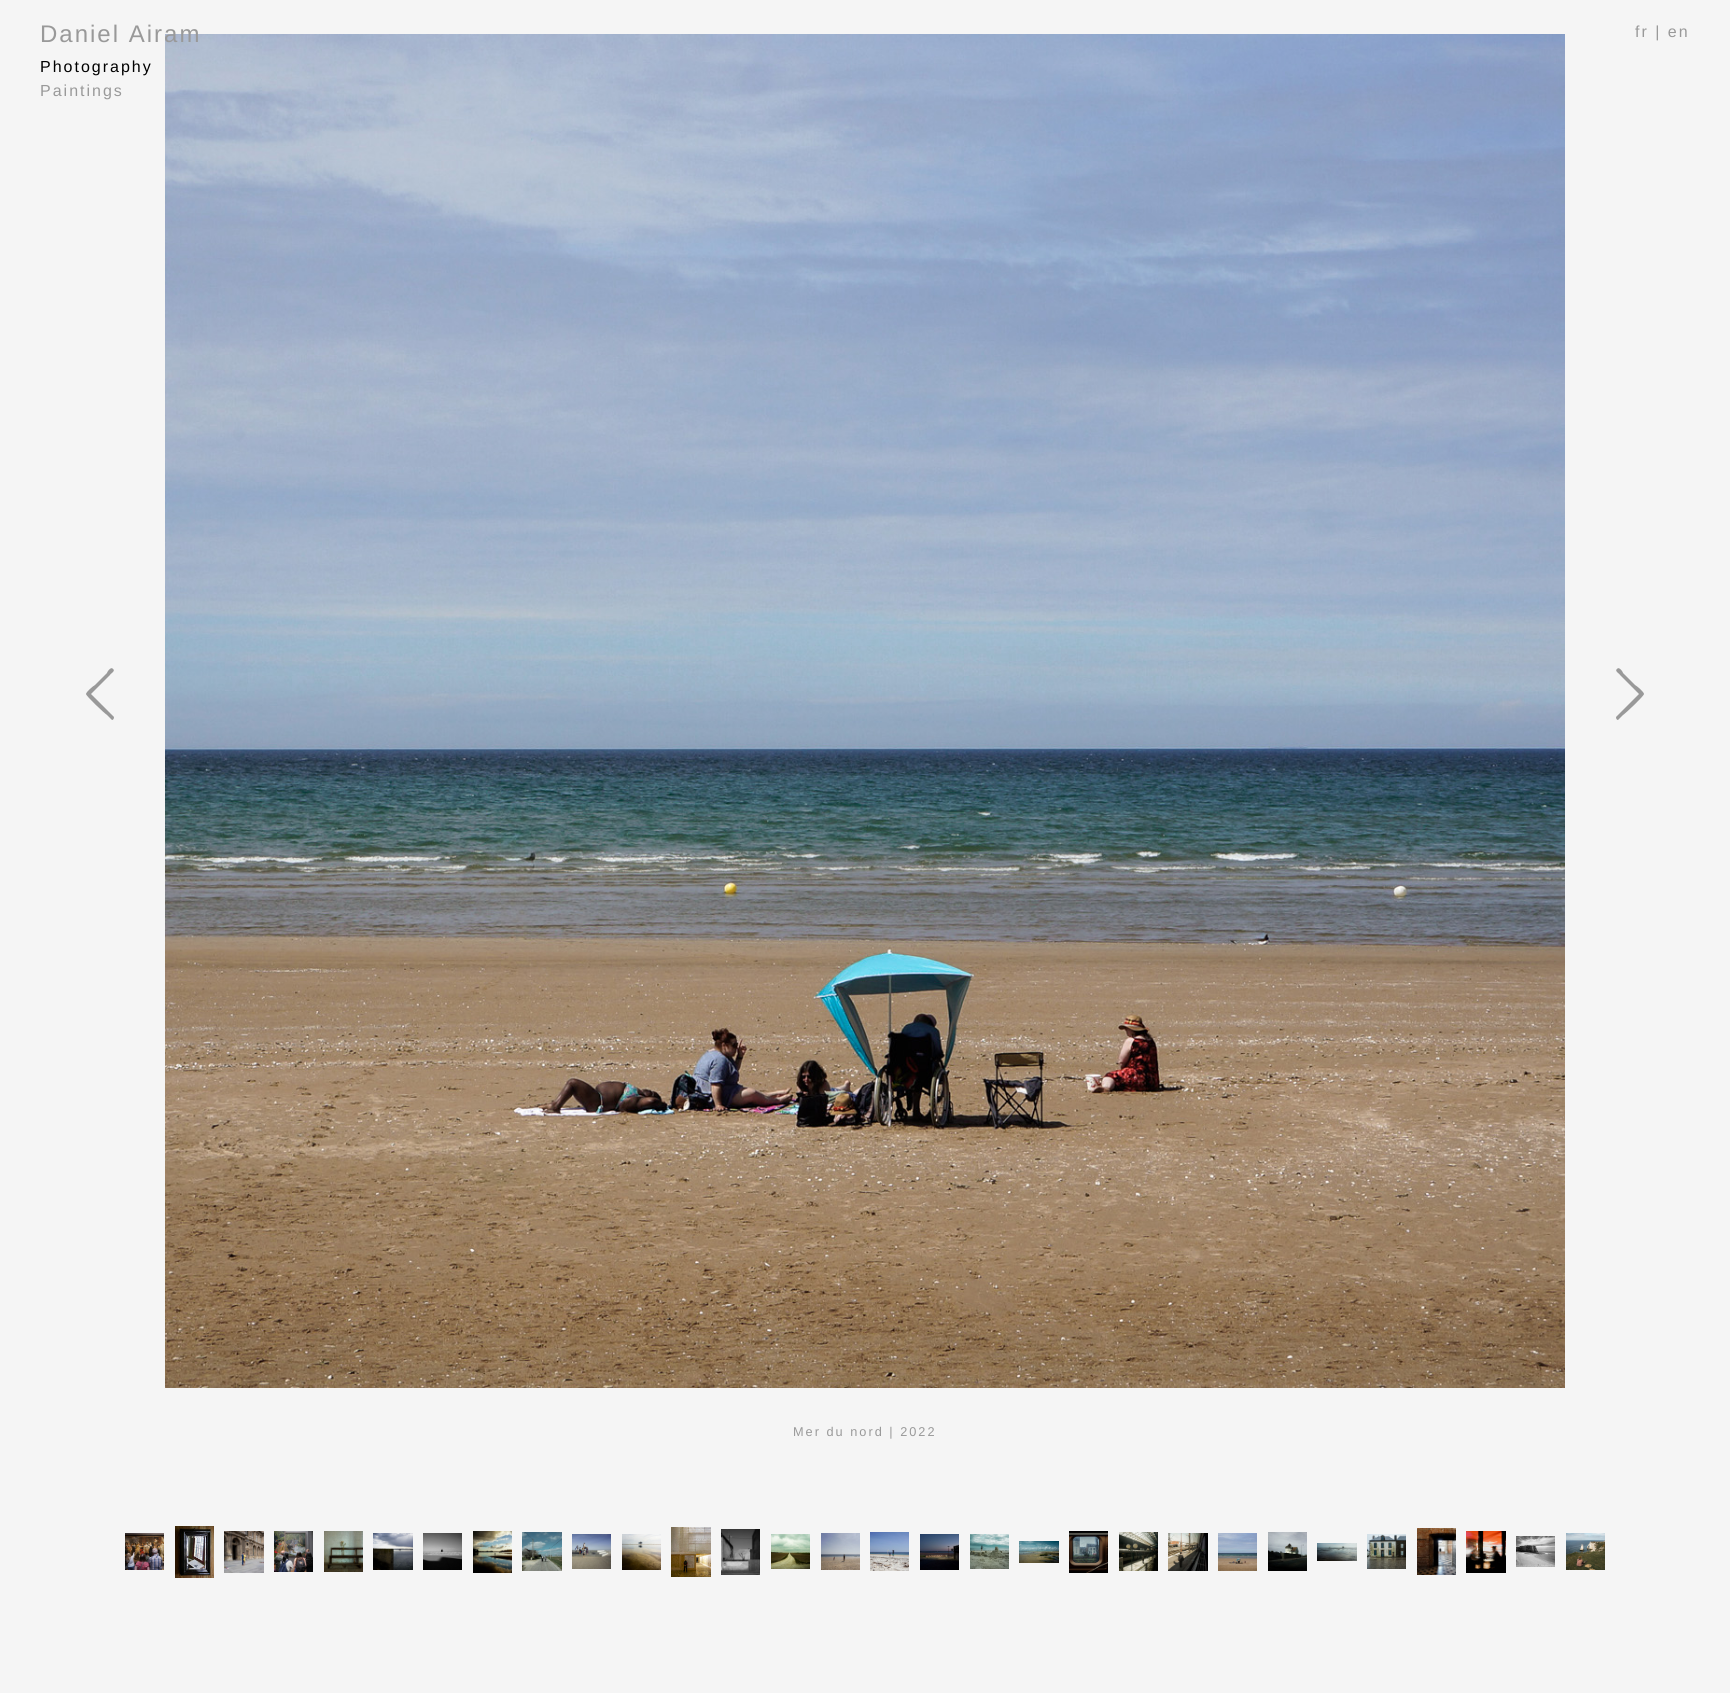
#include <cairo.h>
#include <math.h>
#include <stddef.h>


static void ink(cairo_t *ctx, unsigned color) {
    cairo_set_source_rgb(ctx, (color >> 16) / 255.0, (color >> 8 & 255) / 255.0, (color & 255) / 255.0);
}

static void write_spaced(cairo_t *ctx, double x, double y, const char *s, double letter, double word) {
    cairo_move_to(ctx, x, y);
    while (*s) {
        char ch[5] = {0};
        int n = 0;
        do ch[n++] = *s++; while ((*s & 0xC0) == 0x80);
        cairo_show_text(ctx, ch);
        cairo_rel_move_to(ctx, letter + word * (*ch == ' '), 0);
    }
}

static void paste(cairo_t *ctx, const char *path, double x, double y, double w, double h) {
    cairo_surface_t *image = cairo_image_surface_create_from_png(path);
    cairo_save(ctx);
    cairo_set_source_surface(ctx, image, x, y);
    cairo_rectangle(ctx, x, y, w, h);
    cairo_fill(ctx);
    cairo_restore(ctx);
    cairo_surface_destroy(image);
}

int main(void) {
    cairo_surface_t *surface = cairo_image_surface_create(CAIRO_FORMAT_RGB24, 1730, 1693);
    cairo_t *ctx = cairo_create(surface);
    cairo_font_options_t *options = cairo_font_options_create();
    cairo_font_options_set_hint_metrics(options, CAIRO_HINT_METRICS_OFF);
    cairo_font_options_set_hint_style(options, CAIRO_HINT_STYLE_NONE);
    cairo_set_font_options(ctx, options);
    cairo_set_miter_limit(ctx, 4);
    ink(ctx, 0xF5F5F5);
    cairo_paint(ctx);
    paste(ctx, "media/1.png", 165, 34, 1400, 1354);
    cairo_select_font_face(ctx, "Liberation Sans", CAIRO_FONT_SLANT_NORMAL, CAIRO_FONT_WEIGHT_NORMAL);
    cairo_set_font_size(ctx, 24);
    ink(ctx, 0x999999);
    write_spaced(ctx, 40, 42, "Daniel Airam", 2, 0);
    cairo_set_font_size(ctx, 16);
    ink(ctx, 0x000000);
    write_spaced(ctx, 40, 72, "Photography", 2, 0);
    ink(ctx, 0x999999);
    write_spaced(ctx, 40, 96, "Paintings", 2, 0);
    write_spaced(ctx, 1635, 37, "fr | en", 2, 0);
    cairo_set_fill_rule(ctx, CAIRO_FILL_RULE_EVEN_ODD);
    cairo_new_path(ctx);
    cairo_move_to(ctx, 113, 669);
    cairo_curve_to(ctx, 116, 671, 110, 674, 110, 675);
    cairo_line_to(ctx, 91, 694);
    cairo_line_to(ctx, 114, 717);
    cairo_curve_to(ctx, 114, 719, 113, 720, 112, 720);
    cairo_line_to(ctx, 107, 715);
    cairo_curve_to(ctx, 104, 713, 86, 696, 86, 694);
    cairo_curve_to(ctx, 86, 692, 93, 686, 95, 685);
    cairo_line_to(ctx, 107, 673);
    cairo_curve_to(ctx, 107, 672, 111, 666, 113, 669);
    cairo_close_path(ctx);
    cairo_fill(ctx);
    cairo_new_path(ctx);
    cairo_move_to(ctx, 1617, 669);
    cairo_curve_to(ctx, 1619, 666, 1623, 672, 1623, 673);
    cairo_line_to(ctx, 1635, 685);
    cairo_curve_to(ctx, 1637, 686, 1644, 692, 1644, 694);
    cairo_curve_to(ctx, 1644, 696, 1626, 713, 1623, 715);
    cairo_line_to(ctx, 1618, 720);
    cairo_curve_to(ctx, 1617, 720, 1616, 719, 1616, 717);
    cairo_line_to(ctx, 1639, 694);
    cairo_line_to(ctx, 1620, 675);
    cairo_curve_to(ctx, 1620, 674, 1614, 671, 1617, 669);
    cairo_close_path(ctx);
    cairo_fill(ctx);
    cairo_set_font_size(ctx, 12.75);
    write_spaced(ctx, 793, 1436, "Mer du nord | 2022", 2, 0);
    paste(ctx, "media/2.png", 125, 1533, 39, 37);
    paste(ctx, "media/3.png", 175, 1526, 39, 52);
    paste(ctx, "media/4.png", 224, 1531, 40, 42);
    paste(ctx, "media/5.png", 274, 1531, 39, 41);
    paste(ctx, "media/6.png", 324, 1531, 39, 41);
    paste(ctx, "media/7.png", 373, 1533, 40, 37);
    paste(ctx, "media/8.png", 423, 1533, 39, 37);
    paste(ctx, "media/9.png", 473, 1531, 39, 42);
    paste(ctx, "media/10.png", 522, 1532, 40, 39);
    paste(ctx, "media/11.png", 572, 1534, 39, 35);
    paste(ctx, "media/12.png", 622, 1534, 39, 36);
    paste(ctx, "media/13.png", 671, 1527, 40, 50);
    paste(ctx, "media/14.png", 721, 1529, 39, 46);
    paste(ctx, "media/15.png", 771, 1534, 39, 35);
    paste(ctx, "media/16.png", 821, 1533, 39, 37);
    paste(ctx, "media/17.png", 870, 1532, 39, 39);
    paste(ctx, "media/18.png", 920, 1534, 39, 36);
    paste(ctx, "media/19.png", 970, 1534, 39, 35);
    paste(ctx, "media/20.png", 1019, 1541, 40, 22);
    paste(ctx, "media/21.png", 1069, 1531, 39, 42);
    paste(ctx, "media/22.png", 1119, 1532, 39, 39);
    paste(ctx, "media/23.png", 1168, 1533, 40, 38);
    paste(ctx, "media/24.png", 1218, 1533, 39, 38);
    paste(ctx, "media/25.png", 1268, 1532, 39, 39);
    paste(ctx, "media/26.png", 1317, 1543, 40, 18);
    paste(ctx, "media/27.png", 1367, 1534, 39, 35);
    paste(ctx, "media/28.png", 1417, 1528, 39, 47);
    paste(ctx, "media/29.png", 1466, 1531, 40, 42);
    paste(ctx, "media/30.png", 1516, 1536, 39, 31);
    paste(ctx, "media/31.png", 1566, 1533, 39, 37);
    cairo_surface_write_to_png(surface, "image.png");
    cairo_font_options_destroy(options);
    cairo_destroy(ctx);
    cairo_surface_destroy(surface);
    return 0;
}
